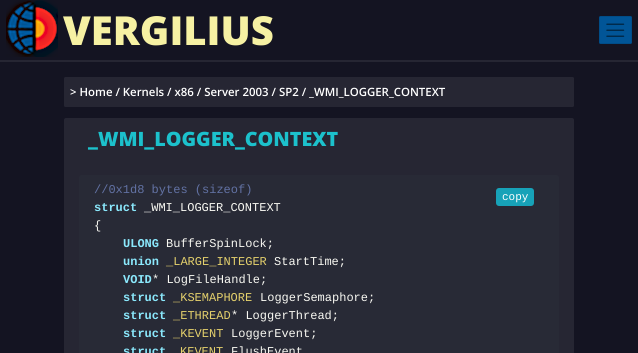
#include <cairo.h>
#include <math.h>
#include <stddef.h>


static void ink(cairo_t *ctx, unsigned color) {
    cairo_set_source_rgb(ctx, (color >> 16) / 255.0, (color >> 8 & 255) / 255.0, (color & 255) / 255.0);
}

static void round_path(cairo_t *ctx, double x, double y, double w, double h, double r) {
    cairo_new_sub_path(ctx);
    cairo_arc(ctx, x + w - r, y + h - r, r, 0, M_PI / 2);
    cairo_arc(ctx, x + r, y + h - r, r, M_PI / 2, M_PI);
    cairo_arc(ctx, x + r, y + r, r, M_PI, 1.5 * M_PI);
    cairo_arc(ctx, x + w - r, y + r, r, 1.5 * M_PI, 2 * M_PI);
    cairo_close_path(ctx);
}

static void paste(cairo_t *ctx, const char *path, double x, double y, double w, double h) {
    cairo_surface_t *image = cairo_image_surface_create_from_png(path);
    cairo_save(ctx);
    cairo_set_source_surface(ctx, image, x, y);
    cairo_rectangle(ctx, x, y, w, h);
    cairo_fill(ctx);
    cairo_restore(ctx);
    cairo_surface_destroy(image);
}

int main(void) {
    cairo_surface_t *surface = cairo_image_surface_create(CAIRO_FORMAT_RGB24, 638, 353);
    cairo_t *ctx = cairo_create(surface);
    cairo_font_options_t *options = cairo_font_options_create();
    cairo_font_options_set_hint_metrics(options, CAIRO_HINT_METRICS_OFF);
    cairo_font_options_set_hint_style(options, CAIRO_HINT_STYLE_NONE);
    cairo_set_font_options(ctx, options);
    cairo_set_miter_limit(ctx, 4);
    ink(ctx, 0x141422);
    cairo_paint(ctx);
    ink(ctx, 0x262633);
    cairo_rectangle(ctx, 0, 60, 638, 2);
    cairo_fill(ctx);
    paste(ctx, "media/1.png", 6, 0, 52, 57);
    cairo_select_font_face(ctx, "Open Sans ExtraBold", CAIRO_FONT_SLANT_NORMAL, CAIRO_FONT_WEIGHT_NORMAL);
    cairo_set_font_size(ctx, 40);
    ink(ctx, 0xF6F1A3);
    cairo_move_to(ctx, 63, 45);
    cairo_show_text(ctx, "VERGILIUS");
    ink(ctx, 0x015597);
    round_path(ctx, 599, 16, 33, 28, 1.5);
    cairo_fill(ctx);
    cairo_rectangle(ctx, 599.5, 16.5, 32, 27);
    cairo_set_source_rgba(ctx, 0, 0, 0, 0.1);
    cairo_set_line_width(ctx, 1);
    cairo_stroke(ctx);
    paste(ctx, "media/2.png", 606, 23, 19, 14);
    ink(ctx, 0x262633);
    round_path(ctx, 64, 77, 510, 30, 1.5);
    cairo_fill(ctx);
    cairo_select_font_face(ctx, "Open Sans SemiBold", CAIRO_FONT_SLANT_NORMAL, CAIRO_FONT_WEIGHT_NORMAL);
    cairo_set_font_size(ctx, 11.4);
    ink(ctx, 0xFFFFFF);
    cairo_move_to(ctx, 70, 96);
    cairo_show_text(ctx, "> Home / Kernels / x86 / Server 2003 / SP2 / _WMI_LOGGER_CONTEXT");
    ink(ctx, 0x262633);
    round_path(ctx, 64, 118, 510, 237, 2);
    cairo_fill(ctx);
    cairo_select_font_face(ctx, "Open Sans ExtraBold", CAIRO_FONT_SLANT_NORMAL, CAIRO_FONT_WEIGHT_NORMAL);
    cairo_set_font_size(ctx, 19.75);
    ink(ctx, 0x1CC1CC);
    cairo_move_to(ctx, 88, 146);
    cairo_show_text(ctx, "_WMI_LOGGER_CONTEXT");
    ink(ctx, 0x282A36);
    round_path(ctx, 79, 175, 480, 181, 3);
    cairo_fill(ctx);
    cairo_select_font_face(ctx, "Liberation Mono", CAIRO_FONT_SLANT_NORMAL, CAIRO_FONT_WEIGHT_NORMAL);
    cairo_set_font_size(ctx, 12);
    ink(ctx, 0x6272A4);
    cairo_move_to(ctx, 94, 193);
    cairo_show_text(ctx, "//0x1d8 bytes (sizeof)");
    cairo_select_font_face(ctx, "Liberation Mono", CAIRO_FONT_SLANT_NORMAL, CAIRO_FONT_WEIGHT_BOLD);
    ink(ctx, 0x8BE9FD);
    cairo_move_to(ctx, 94, 211);
    cairo_show_text(ctx, "struct");
    cairo_select_font_face(ctx, "Liberation Mono", CAIRO_FONT_SLANT_NORMAL, CAIRO_FONT_WEIGHT_NORMAL);
    ink(ctx, 0xF8F8F2);
    cairo_move_to(ctx, 144, 211);
    cairo_show_text(ctx, "_WMI_LOGGER_CONTEXT");
    cairo_move_to(ctx, 94, 229);
    cairo_show_text(ctx, "{");
    cairo_select_font_face(ctx, "Liberation Mono", CAIRO_FONT_SLANT_NORMAL, CAIRO_FONT_WEIGHT_BOLD);
    ink(ctx, 0x8BE9FD);
    cairo_move_to(ctx, 123, 247);
    cairo_show_text(ctx, "ULONG");
    cairo_select_font_face(ctx, "Liberation Mono", CAIRO_FONT_SLANT_NORMAL, CAIRO_FONT_WEIGHT_NORMAL);
    ink(ctx, 0xF8F8F2);
    cairo_move_to(ctx, 166, 247);
    cairo_show_text(ctx, "BufferSpinLock;");
    cairo_select_font_face(ctx, "Liberation Mono", CAIRO_FONT_SLANT_NORMAL, CAIRO_FONT_WEIGHT_BOLD);
    ink(ctx, 0x8BE9FD);
    cairo_move_to(ctx, 123, 265);
    cairo_show_text(ctx, "union");
    cairo_select_font_face(ctx, "Liberation Mono", CAIRO_FONT_SLANT_NORMAL, CAIRO_FONT_WEIGHT_NORMAL);
    ink(ctx, 0xE4D06C);
    cairo_move_to(ctx, 166, 265);
    cairo_show_text(ctx, "_LARGE_INTEGER");
    ink(ctx, 0xF8F8F2);
    cairo_move_to(ctx, 274, 265);
    cairo_show_text(ctx, "StartTime;");
    cairo_select_font_face(ctx, "Liberation Mono", CAIRO_FONT_SLANT_NORMAL, CAIRO_FONT_WEIGHT_BOLD);
    ink(ctx, 0x8BE9FD);
    cairo_move_to(ctx, 123, 283);
    cairo_show_text(ctx, "VOID");
    cairo_select_font_face(ctx, "Liberation Mono", CAIRO_FONT_SLANT_NORMAL, CAIRO_FONT_WEIGHT_NORMAL);
    ink(ctx, 0xF8F8F2);
    cairo_move_to(ctx, 152, 283);
    cairo_show_text(ctx, "* LogFileHandle;");
    cairo_select_font_face(ctx, "Liberation Mono", CAIRO_FONT_SLANT_NORMAL, CAIRO_FONT_WEIGHT_BOLD);
    ink(ctx, 0x8BE9FD);
    cairo_move_to(ctx, 123, 301);
    cairo_show_text(ctx, "struct");
    cairo_select_font_face(ctx, "Liberation Mono", CAIRO_FONT_SLANT_NORMAL, CAIRO_FONT_WEIGHT_NORMAL);
    ink(ctx, 0xE4D06C);
    cairo_move_to(ctx, 173, 301);
    cairo_show_text(ctx, "_KSEMAPHORE");
    ink(ctx, 0xF8F8F2);
    cairo_move_to(ctx, 260, 301);
    cairo_show_text(ctx, "LoggerSemaphore;");
    cairo_select_font_face(ctx, "Liberation Mono", CAIRO_FONT_SLANT_NORMAL, CAIRO_FONT_WEIGHT_BOLD);
    ink(ctx, 0x8BE9FD);
    cairo_move_to(ctx, 123, 319);
    cairo_show_text(ctx, "struct");
    cairo_select_font_face(ctx, "Liberation Mono", CAIRO_FONT_SLANT_NORMAL, CAIRO_FONT_WEIGHT_NORMAL);
    ink(ctx, 0xE4D06C);
    cairo_move_to(ctx, 173, 319);
    cairo_show_text(ctx, "_ETHREAD");
    ink(ctx, 0xF8F8F2);
    cairo_move_to(ctx, 231, 319);
    cairo_show_text(ctx, "* LoggerThread;");
    cairo_select_font_face(ctx, "Liberation Mono", CAIRO_FONT_SLANT_NORMAL, CAIRO_FONT_WEIGHT_BOLD);
    ink(ctx, 0x8BE9FD);
    cairo_move_to(ctx, 123, 337);
    cairo_show_text(ctx, "struct");
    cairo_select_font_face(ctx, "Liberation Mono", CAIRO_FONT_SLANT_NORMAL, CAIRO_FONT_WEIGHT_NORMAL);
    ink(ctx, 0xE4D06C);
    cairo_move_to(ctx, 173, 337);
    cairo_show_text(ctx, "_KEVENT");
    ink(ctx, 0xF8F8F2);
    cairo_move_to(ctx, 231, 337);
    cairo_show_text(ctx, "LoggerEvent;");
    cairo_select_font_face(ctx, "Liberation Mono", CAIRO_FONT_SLANT_NORMAL, CAIRO_FONT_WEIGHT_BOLD);
    ink(ctx, 0x8BE9FD);
    cairo_move_to(ctx, 123, 355);
    cairo_show_text(ctx, "struct");
    cairo_select_font_face(ctx, "Liberation Mono", CAIRO_FONT_SLANT_NORMAL, CAIRO_FONT_WEIGHT_NORMAL);
    ink(ctx, 0xE4D06C);
    cairo_move_to(ctx, 180, 355);
    cairo_show_text(ctx, "KEVENT");
    ink(ctx, 0xF8F8F2);
    cairo_move_to(ctx, 231, 355);
    cairo_show_text(ctx, "FlushEvent");
    ink(ctx, 0x17A2B8);
    round_path(ctx, 496, 188, 38, 18, 3);
    cairo_fill(ctx);
    cairo_set_font_size(ctx, 11);
    ink(ctx, 0xFFFFFF);
    cairo_move_to(ctx, 502, 200);
    cairo_show_text(ctx, "copy");
    cairo_surface_write_to_png(surface, "image.png");
    cairo_font_options_destroy(options);
    cairo_destroy(ctx);
    cairo_surface_destroy(surface);
    return 0;
}
